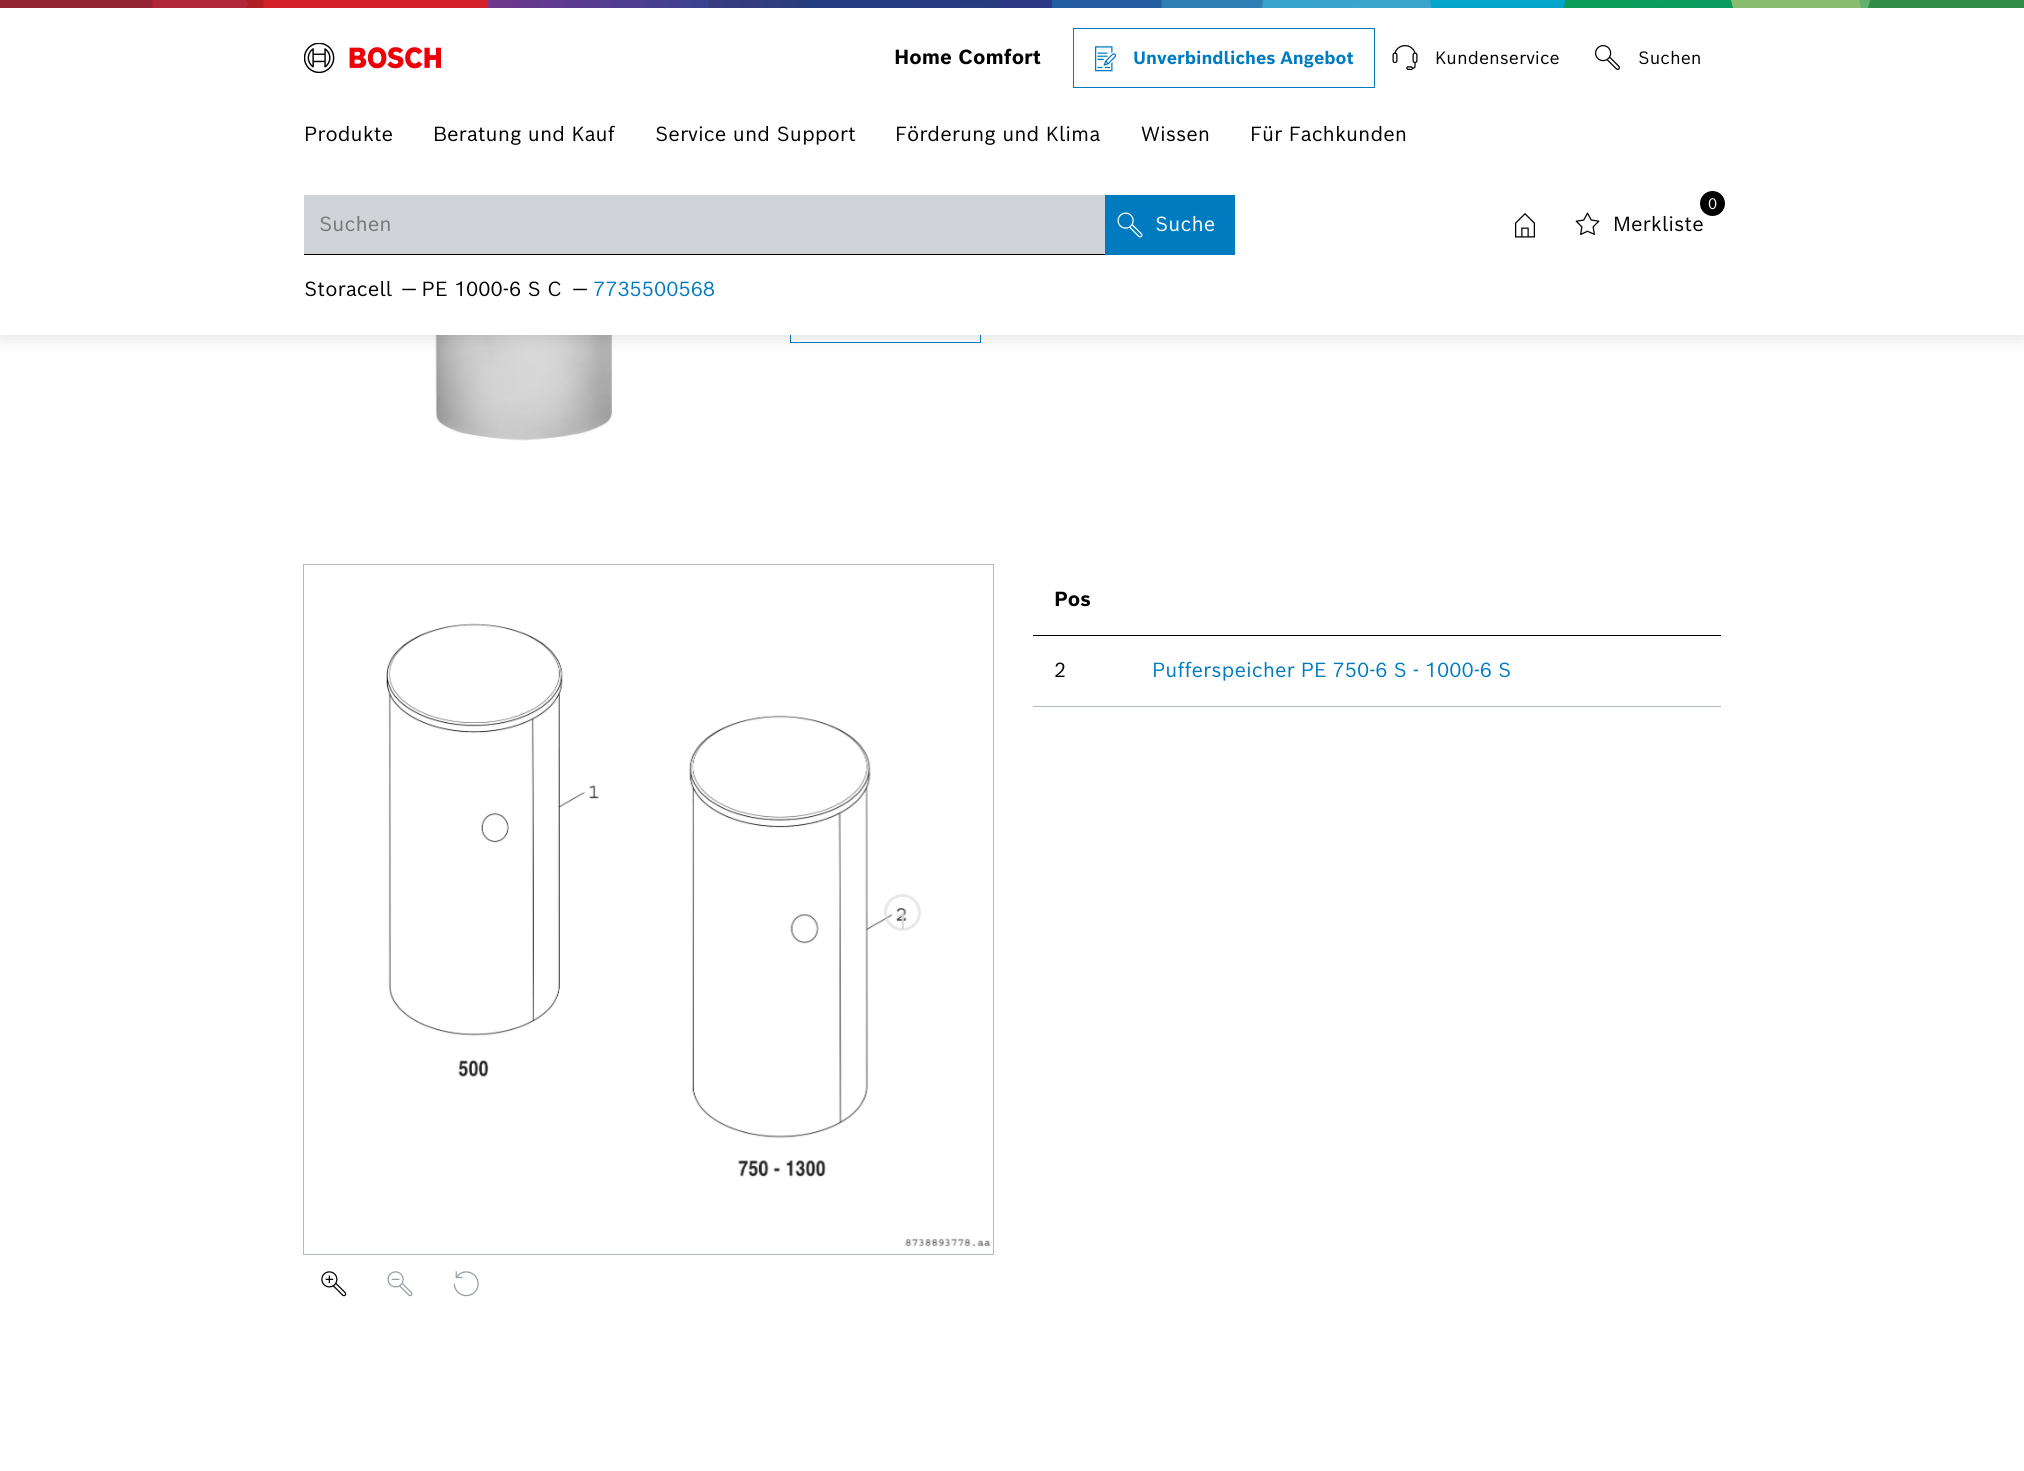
#include <cairo.h>
#include <math.h>
#include <stddef.h>

typedef struct { double x, y; const char *s; } line_t;
typedef struct { double x, y, w, h; unsigned color; } box_t;

static void ink(cairo_t *ctx, unsigned color) {
    cairo_set_source_rgb(ctx, (color >> 16) / 255.0, (color >> 8 & 255) / 255.0, (color & 255) / 255.0);
}

static void write_spaced(cairo_t *ctx, double x, double y, const char *s, double letter, double word) {
    cairo_move_to(ctx, x, y);
    while (*s) {
        char ch[5] = {0};
        int n = 0;
        do ch[n++] = *s++; while ((*s & 0xC0) == 0x80);
        cairo_show_text(ctx, ch);
        cairo_rel_move_to(ctx, letter + word * (*ch == ' '), 0);
    }
}

static void round_path(cairo_t *ctx, double x, double y, double w, double h, double r) {
    cairo_new_sub_path(ctx);
    cairo_arc(ctx, x + w - r, y + h - r, r, 0, M_PI / 2);
    cairo_arc(ctx, x + r, y + h - r, r, M_PI / 2, M_PI);
    cairo_arc(ctx, x + r, y + r, r, M_PI, 1.5 * M_PI);
    cairo_arc(ctx, x + w - r, y + r, r, 1.5 * M_PI, 2 * M_PI);
    cairo_close_path(ctx);
}

static void blur_box(cairo_t *ctx, double x, double y, double w, double h, double r, double blur, double alpha) {
    cairo_push_group_with_content(ctx, CAIRO_CONTENT_ALPHA);
    cairo_set_operator(ctx, CAIRO_OPERATOR_SOURCE);
    for (int i = 15; i >= -15 && fmin(w, h) + blur * i / 3 > 0; i -= 2) {
        double e = blur * i / 6;
        cairo_set_source_rgba(ctx, 0, 0, 0, alpha * erfc((i - 1) / 8.5) / 2);
        round_path(ctx, x - e, y - e, w + 2 * e, h + 2 * e, fmax(0, fmin(r + e + blur * .6, fmin(w, h) / 2 + e)));
        cairo_fill(ctx);
    }
    cairo_pattern_t *soft = cairo_pop_group(ctx);
    cairo_mask(ctx, soft);
    cairo_pattern_destroy(soft);
}

static void paste(cairo_t *ctx, const char *path, double x, double y, double w, double h) {
    cairo_surface_t *image = cairo_image_surface_create_from_png(path);
    cairo_save(ctx);
    cairo_set_source_surface(ctx, image, x, y);
    cairo_rectangle(ctx, x, y, w, h);
    cairo_fill(ctx);
    cairo_restore(ctx);
    cairo_surface_destroy(image);
}

int main(void) {
    cairo_surface_t *surface = cairo_image_surface_create(CAIRO_FORMAT_RGB24, 2024, 1471);
    cairo_t *ctx = cairo_create(surface);
    cairo_font_options_t *options = cairo_font_options_create();
    cairo_font_options_set_hint_metrics(options, CAIRO_HINT_METRICS_OFF);
    cairo_font_options_set_hint_style(options, CAIRO_HINT_STYLE_NONE);
    cairo_set_font_options(ctx, options);
    cairo_set_miter_limit(ctx, 4);
    ink(ctx, 0xFFFFFF);
    cairo_paint(ctx);
    paste(ctx, "media/1.png", 0, 0, 2024, 8);
    paste(ctx, "media/2.png", 304, 43, 137, 30);
    cairo_select_font_face(ctx, "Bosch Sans", CAIRO_FONT_SLANT_NORMAL, CAIRO_FONT_WEIGHT_BOLD);
    cairo_set_font_size(ctx, 20);
    ink(ctx, 0x000000);
    cairo_move_to(ctx, 894, 64);
    cairo_show_text(ctx, "Home Comfort");
    cairo_rectangle(ctx, 1073.5, 28.5, 301, 59);
    ink(ctx, 0x007BC0);
    cairo_set_line_width(ctx, 1);
    cairo_stroke(ctx);
    paste(ctx, "media/3.png", 1095, 46, 22, 26);
    cairo_set_font_size(ctx, 17.5);
    write_spaced(ctx, 1133, 64, "Unverbindliches Angebot", 0, -1);
    paste(ctx, "media/4.png", 1392, 45, 26, 25);
    cairo_select_font_face(ctx, "Bosch Sans", CAIRO_FONT_SLANT_NORMAL, CAIRO_FONT_WEIGHT_NORMAL);
    ink(ctx, 0x000000);
    cairo_move_to(ctx, 1435, 64);
    cairo_show_text(ctx, "Kundenservice");
    paste(ctx, "media/5.png", 1595, 45, 25, 25);
    cairo_move_to(ctx, 1638, 64);
    cairo_show_text(ctx, "Suchen");
    cairo_rectangle(ctx, 790.5, 280.5, 190, 62);
    ink(ctx, 0x007BC0);
    cairo_stroke(ctx);
    paste(ctx, "media/9.png", 433, 335, 182, 106);
    ink(ctx, 0x000000);
    blur_box(ctx, 0, 165, 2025, 170, 0, 10, 0.16);
    cairo_set_font_size(ctx, 20);
    ink(ctx, 0x000000);
    {
        static const line_t items[] = {
            {304, 141, "Produkte"},
            {433, 141, "Beratung und Kauf"},
            {655, 141, "Service und Support"},
            {895, 141, "Förderung und Klima"},
            {1141, 141, "Wissen"},
            {1250, 141, "Für Fachkunden"},
        };
        for (size_t i = 0; i < sizeof items / sizeof *items; i++) {
            cairo_move_to(ctx, items[i].x, items[i].y);
            cairo_show_text(ctx, items[i].s);
        }
    }
    {
        static const box_t items[] = {
            {0, 150, 2024, 185, 0xFFFFFF},
            {304, 195, 801, 59, 0xD0D4D8},
            {304, 254, 801, 1, 0x000000},
        };
        for (size_t i = 0; i < sizeof items / sizeof *items; i++) {
            ink(ctx, items[i].color);
            cairo_rectangle(ctx, items[i].x, items[i].y, items[i].w, items[i].h);
            cairo_fill(ctx);
        }
    }
    ink(ctx, 0x757575);
    cairo_move_to(ctx, 319, 231);
    cairo_show_text(ctx, "Suchen");
    ink(ctx, 0x007BC0);
    cairo_rectangle(ctx, 1105, 195, 130, 60);
    cairo_fill(ctx);
    paste(ctx, "media/6.png", 1117, 212, 26, 26);
    ink(ctx, 0xFFFFFF);
    cairo_move_to(ctx, 1155, 231);
    cairo_show_text(ctx, "Suche");
    paste(ctx, "media/7.png", 1515, 213, 20, 25);
    ink(ctx, 0x000000);
    cairo_arc(ctx, 1712.5, 203.5, 12.5, 0, 2 * M_PI);
    cairo_fill(ctx);
    cairo_set_font_size(ctx, 15);
    ink(ctx, 0xFFFFFF);
    cairo_move_to(ctx, 1708, 209);
    cairo_show_text(ctx, "0");
    paste(ctx, "media/8.png", 1575, 212, 25, 23);
    cairo_set_font_size(ctx, 20);
    ink(ctx, 0x000000);
    {
        static const line_t items[] = {
            {1613, 231, "Merkliste"},
            {304, 296, "Storacell"},
            {403, 296, "— PE 1000-6 S C"},
            {574, 296, "—"},
        };
        for (size_t i = 0; i < sizeof items / sizeof *items; i++) {
            cairo_move_to(ctx, items[i].x, items[i].y);
            cairo_show_text(ctx, items[i].s);
        }
    }
    ink(ctx, 0x007BC0);
    cairo_move_to(ctx, 593, 296);
    cairo_show_text(ctx, "7735500568");
    ink(ctx, 0x000000);
    cairo_rectangle(ctx, 1033, 635, 688, 1);
    cairo_fill(ctx);
    cairo_select_font_face(ctx, "Bosch Sans", CAIRO_FONT_SLANT_NORMAL, CAIRO_FONT_WEIGHT_BOLD);
    cairo_move_to(ctx, 1054, 606);
    cairo_show_text(ctx, "Pos");
    ink(ctx, 0xB2B9C0);
    cairo_rectangle(ctx, 1033, 706, 688, 1);
    cairo_fill(ctx);
    cairo_select_font_face(ctx, "Bosch Sans", CAIRO_FONT_SLANT_NORMAL, CAIRO_FONT_WEIGHT_NORMAL);
    ink(ctx, 0x000000);
    cairo_move_to(ctx, 1054, 677);
    cairo_show_text(ctx, "2");
    ink(ctx, 0x007BC0);
    write_spaced(ctx, 1152, 677, "Pufferspeicher PE 750-6 S - 1000-6 S", 0, -0.5);
    cairo_rectangle(ctx, 303.5, 564.5, 690, 690);
    ink(ctx, 0xB2B9C0);
    cairo_stroke(ctx);
    paste(ctx, "media/10.png", 386, 623, 605, 624);
    cairo_arc(ctx, 902.5, 912.5, 17, 0, 2 * M_PI);
    cairo_set_source_rgba(ctx, 0.816, 0.831, 0.847, 0.5);
    cairo_set_line_width(ctx, 3);
    cairo_stroke(ctx);
    cairo_set_font_size(ctx, 22);
    ink(ctx, 0xD5D5D6);
    cairo_move_to(ctx, 895, 929);
    cairo_show_text(ctx, "1");
    paste(ctx, "media/11.png", 321, 1271, 26, 26);
    paste(ctx, "media/12.png", 387, 1271, 26, 26);
    paste(ctx, "media/13.png", 453, 1271, 26, 26);
    cairo_surface_write_to_png(surface, "image.png");
    cairo_font_options_destroy(options);
    cairo_destroy(ctx);
    cairo_surface_destroy(surface);
    return 0;
}
